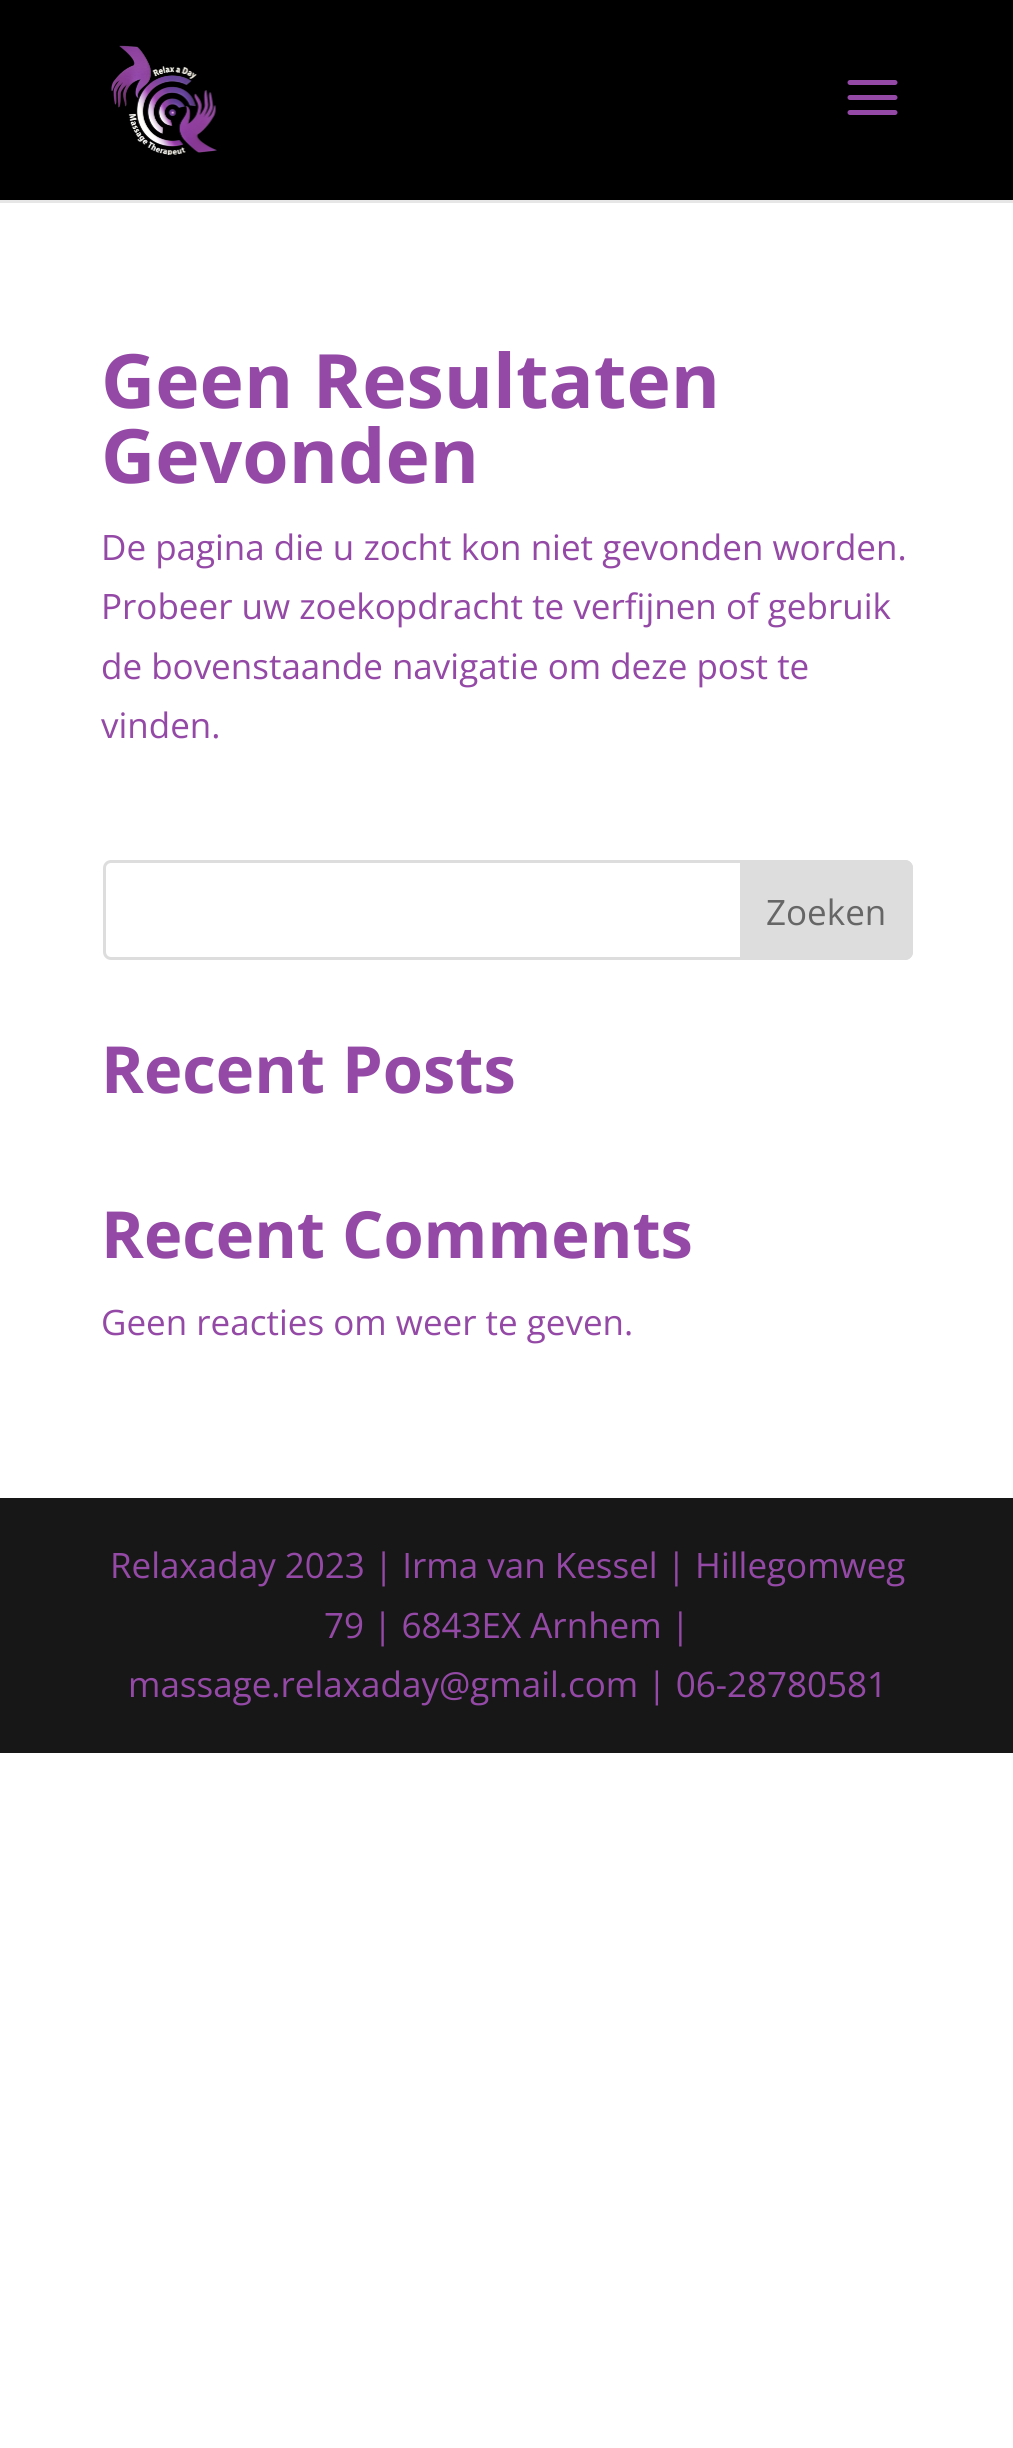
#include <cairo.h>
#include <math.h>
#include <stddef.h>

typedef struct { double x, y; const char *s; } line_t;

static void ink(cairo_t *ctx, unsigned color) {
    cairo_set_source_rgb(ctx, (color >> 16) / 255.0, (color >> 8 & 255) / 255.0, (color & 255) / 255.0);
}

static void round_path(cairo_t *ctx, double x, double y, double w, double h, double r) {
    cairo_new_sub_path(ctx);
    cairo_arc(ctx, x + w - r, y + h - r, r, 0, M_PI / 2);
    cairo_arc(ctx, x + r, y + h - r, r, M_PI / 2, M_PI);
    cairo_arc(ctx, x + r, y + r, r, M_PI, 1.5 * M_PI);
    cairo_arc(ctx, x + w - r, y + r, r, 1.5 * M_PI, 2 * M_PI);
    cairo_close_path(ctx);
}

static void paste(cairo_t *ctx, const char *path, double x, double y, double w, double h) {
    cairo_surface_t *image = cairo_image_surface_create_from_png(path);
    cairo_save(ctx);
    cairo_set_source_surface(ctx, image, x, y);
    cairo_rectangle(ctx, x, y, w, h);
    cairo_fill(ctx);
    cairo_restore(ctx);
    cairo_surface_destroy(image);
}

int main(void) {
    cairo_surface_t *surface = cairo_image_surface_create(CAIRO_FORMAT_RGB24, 1013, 2448);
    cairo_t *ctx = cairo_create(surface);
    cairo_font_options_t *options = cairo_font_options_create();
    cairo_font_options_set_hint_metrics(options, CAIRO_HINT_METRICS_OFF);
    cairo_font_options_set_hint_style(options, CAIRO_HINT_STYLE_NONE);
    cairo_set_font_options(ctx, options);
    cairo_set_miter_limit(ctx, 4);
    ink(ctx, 0xFFFFFF);
    cairo_paint(ctx);
    ink(ctx, 0xE6E6E6);
    cairo_rectangle(ctx, 0, 200, 1013, 3);
    cairo_fill(ctx);
    ink(ctx, 0x000000);
    cairo_rectangle(ctx, 0, 0, 1013, 200);
    cairo_fill(ctx);
    paste(ctx, "media/1.png", 111, 45, 106, 110);
    paste(ctx, "media/2.png", 847, 80, 51, 35);
    cairo_select_font_face(ctx, "Open Sans", CAIRO_FONT_SLANT_NORMAL, CAIRO_FONT_WEIGHT_BOLD);
    cairo_set_font_size(ctx, 75);
    ink(ctx, 0x9449A6);
    cairo_move_to(ctx, 101, 408);
    cairo_show_text(ctx, "Geen Resultaten");
    cairo_move_to(ctx, 101, 483);
    cairo_show_text(ctx, "Gevonden");
    cairo_select_font_face(ctx, "Open Sans", CAIRO_FONT_SLANT_NORMAL, CAIRO_FONT_WEIGHT_NORMAL);
    cairo_set_font_size(ctx, 35);
    {
        static const line_t items[] = {
            {101, 560, "De pagina die u zocht kon niet gevonden worden."},
            {101, 619, "Probeer uw zoekopdracht te verfijnen of gebruik"},
            {101, 679, "de bovenstaande navigatie om deze post te"},
            {101, 738, "vinden."},
        };
        for (size_t i = 0; i < sizeof items / sizeof *items; i++) {
            cairo_move_to(ctx, items[i].x, items[i].y);
            cairo_show_text(ctx, items[i].s);
        }
    }
    round_path(ctx, 104.5, 861.5, 807, 97, 6.5);
    ink(ctx, 0xDDDDDD);
    cairo_set_line_width(ctx, 3);
    cairo_stroke(ctx);
    cairo_new_path(ctx);
    cairo_move_to(ctx, 741.5, 861.5);
    cairo_line_to(ctx, 905, 861.5);
    cairo_curve_to(ctx, 908.5, 861.5, 911.5, 864.5, 911.5, 868);
    cairo_line_to(ctx, 911.5, 952);
    cairo_curve_to(ctx, 911.5, 955.5, 908.5, 958.5, 905, 958.5);
    cairo_line_to(ctx, 741.5, 958.5);
    cairo_close_path(ctx);
    cairo_fill_preserve(ctx);
    cairo_stroke(ctx);
    ink(ctx, 0x666666);
    cairo_move_to(ctx, 766, 925);
    cairo_show_text(ctx, "Zoeken");
    cairo_select_font_face(ctx, "Open Sans", CAIRO_FONT_SLANT_NORMAL, CAIRO_FONT_WEIGHT_BOLD);
    cairo_set_font_size(ctx, 65);
    ink(ctx, 0x9449A6);
    cairo_move_to(ctx, 101, 1093);
    cairo_show_text(ctx, "Recent Posts");
    cairo_move_to(ctx, 101, 1258);
    cairo_show_text(ctx, "Recent Comments");
    cairo_select_font_face(ctx, "Open Sans", CAIRO_FONT_SLANT_NORMAL, CAIRO_FONT_WEIGHT_NORMAL);
    cairo_set_font_size(ctx, 35);
    cairo_move_to(ctx, 101, 1335);
    cairo_show_text(ctx, "Geen reacties om weer te geven.");
    ink(ctx, 0x171717);
    cairo_rectangle(ctx, 0, 1498, 1013, 255);
    cairo_fill(ctx);
    ink(ctx, 0x9449A6);
    {
        static const line_t items[] = {
            {110, 1578, "Relaxaday 2023 | Irma van Kessel | Hillegomweg"},
            {324, 1638, "79 | 6843EX Arnhem |"},
            {128, 1697, "massage.relaxaday@gmail.com | 06-28780581"},
        };
        for (size_t i = 0; i < sizeof items / sizeof *items; i++) {
            cairo_move_to(ctx, items[i].x, items[i].y);
            cairo_show_text(ctx, items[i].s);
        }
    }
    cairo_surface_write_to_png(surface, "image.png");
    cairo_font_options_destroy(options);
    cairo_destroy(ctx);
    cairo_surface_destroy(surface);
    return 0;
}
